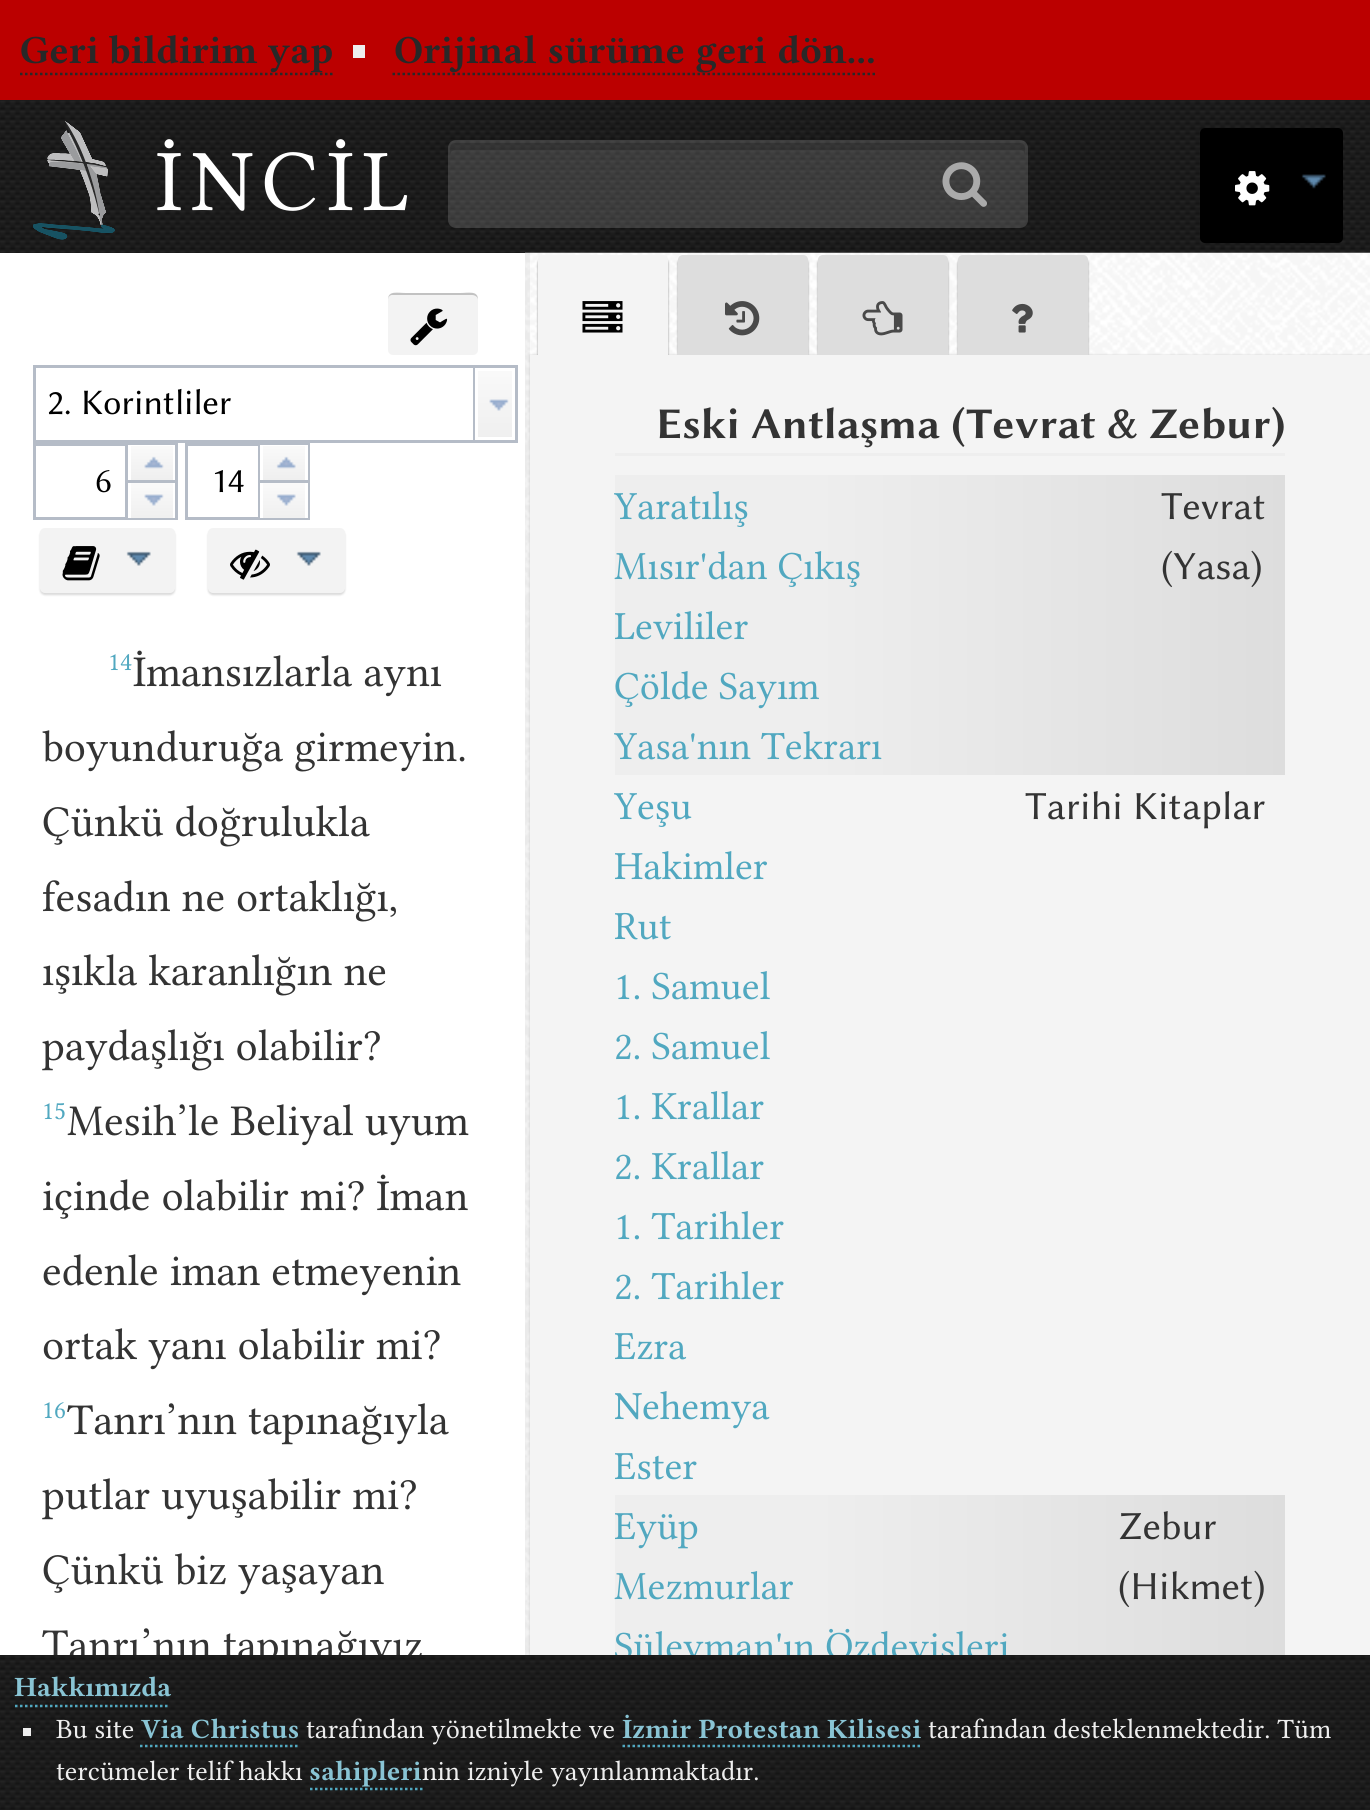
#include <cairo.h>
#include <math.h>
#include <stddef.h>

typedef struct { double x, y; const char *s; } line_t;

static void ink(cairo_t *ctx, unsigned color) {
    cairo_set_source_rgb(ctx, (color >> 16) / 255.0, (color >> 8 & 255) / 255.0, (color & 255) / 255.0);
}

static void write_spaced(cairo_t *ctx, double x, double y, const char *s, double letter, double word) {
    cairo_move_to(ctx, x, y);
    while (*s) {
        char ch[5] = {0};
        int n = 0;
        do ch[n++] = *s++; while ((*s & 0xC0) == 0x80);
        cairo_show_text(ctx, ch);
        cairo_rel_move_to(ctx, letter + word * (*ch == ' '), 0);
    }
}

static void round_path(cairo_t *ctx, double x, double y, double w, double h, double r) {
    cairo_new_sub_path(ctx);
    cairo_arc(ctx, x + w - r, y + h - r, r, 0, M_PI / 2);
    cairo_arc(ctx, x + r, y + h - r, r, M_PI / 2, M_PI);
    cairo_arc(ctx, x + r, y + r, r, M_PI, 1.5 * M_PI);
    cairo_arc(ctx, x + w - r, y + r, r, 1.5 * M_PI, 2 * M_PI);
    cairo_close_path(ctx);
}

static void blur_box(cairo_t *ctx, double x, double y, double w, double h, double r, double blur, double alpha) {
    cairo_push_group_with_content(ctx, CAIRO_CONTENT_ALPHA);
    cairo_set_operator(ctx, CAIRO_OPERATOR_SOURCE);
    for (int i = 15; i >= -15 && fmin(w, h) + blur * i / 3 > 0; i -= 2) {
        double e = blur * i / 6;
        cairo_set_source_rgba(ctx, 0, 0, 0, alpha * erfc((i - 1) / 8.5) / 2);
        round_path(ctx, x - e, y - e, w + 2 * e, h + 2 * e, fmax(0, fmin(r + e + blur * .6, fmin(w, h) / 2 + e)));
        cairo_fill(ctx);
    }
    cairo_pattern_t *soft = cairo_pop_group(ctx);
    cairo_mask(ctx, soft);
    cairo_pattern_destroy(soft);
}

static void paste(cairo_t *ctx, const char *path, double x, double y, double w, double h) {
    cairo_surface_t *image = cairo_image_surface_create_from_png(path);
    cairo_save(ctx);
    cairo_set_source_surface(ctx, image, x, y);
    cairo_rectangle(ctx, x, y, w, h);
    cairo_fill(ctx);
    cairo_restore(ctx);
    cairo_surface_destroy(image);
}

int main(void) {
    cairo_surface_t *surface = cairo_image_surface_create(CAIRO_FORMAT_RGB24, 1370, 1810);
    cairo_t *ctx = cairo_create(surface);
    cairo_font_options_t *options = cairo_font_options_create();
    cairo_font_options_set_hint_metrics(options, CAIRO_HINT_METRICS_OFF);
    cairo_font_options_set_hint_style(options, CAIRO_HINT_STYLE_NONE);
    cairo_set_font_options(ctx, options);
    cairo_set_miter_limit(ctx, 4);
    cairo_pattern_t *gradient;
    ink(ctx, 0xFFFFFF);
    cairo_paint(ctx);
    paste(ctx, "media/1.png", 0, 100, 1370, 1710);
    ink(ctx, 0xBB0000);
    cairo_rectangle(ctx, 0, 0, 1370, 100);
    cairo_fill(ctx);
    cairo_new_path(ctx);
    cairo_move_to(ctx, 20, 74);
    cairo_line_to(ctx, 332.5, 74);
    ink(ctx, 0x282828);
    cairo_set_line_width(ctx, 2.5);
    cairo_set_dash(ctx, (double[]){2.5, 2.5}, 2, 0);
    cairo_stroke(ctx);
    cairo_select_font_face(ctx, "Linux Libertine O", CAIRO_FONT_SLANT_NORMAL, CAIRO_FONT_WEIGHT_BOLD);
    cairo_set_font_size(ctx, 40);
    cairo_move_to(ctx, 20, 63);
    cairo_show_text(ctx, "Geri bildirim yap");
    ink(ctx, 0xEEEEEE);
    cairo_rectangle(ctx, 353, 45, 12, 13);
    cairo_fill(ctx);
    cairo_new_path(ctx);
    cairo_move_to(ctx, 392.5, 74);
    cairo_line_to(ctx, 875, 74);
    ink(ctx, 0x282828);
    cairo_stroke(ctx);
    write_spaced(ctx, 394, 63, "Orijinal sürüme geri dön...", 0, 1);
    paste(ctx, "media/2.png", 33, 121, 82, 119);
    cairo_select_font_face(ctx, "Linux Libertine O", CAIRO_FONT_SLANT_NORMAL, CAIRO_FONT_WEIGHT_NORMAL);
    cairo_set_font_size(ctx, 88);
    ink(ctx, 0xFFFFFF);
    write_spaced(ctx, 156, 210, "İNCİL", 9, 0);
    cairo_set_source_rgba(ctx, 1, 1, 1, 0.15);
    round_path(ctx, 448, 140, 580, 88, 8);
    cairo_fill(ctx);
    cairo_set_source_rgba(ctx, 0, 0, 0, 0.15);
    cairo_new_path(ctx);
    cairo_move_to(ctx, 456, 150);
    cairo_line_to(ctx, 1020, 150);
    cairo_curve_to(ctx, 1023, 150, 1025, 152, 1025, 156);
    cairo_line_to(ctx, 1025, 148);
    cairo_curve_to(ctx, 1025, 145, 1023, 143, 1020, 143);
    cairo_line_to(ctx, 455, 143);
    cairo_curve_to(ctx, 452, 143, 450, 145, 450, 148);
    cairo_line_to(ctx, 450, 156);
    cairo_curve_to(ctx, 450, 152, 452, 150, 456, 150);
    cairo_close_path(ctx);
    cairo_fill(ctx);
    paste(ctx, "media/3.png", 942, 162, 45, 45);
    ink(ctx, 0x000000);
    round_path(ctx, 1200, 128, 143, 115, 5);
    cairo_fill(ctx);
    paste(ctx, "media/4.png", 1235, 171, 35, 35);
    paste(ctx, "media/5.png", 1301, 174, 25, 15);
    ink(ctx, 0xFFFFFF);
    cairo_rectangle(ctx, 0, 253, 525, 1402);
    cairo_fill(ctx);
    ink(ctx, 0xF3F3F3);
    round_path(ctx, 388, 293, 90, 62, 5);
    cairo_fill(ctx);
    cairo_set_source_rgba(ctx, 0, 0, 0, 0.2);
    cairo_new_path(ctx);
    cairo_move_to(ctx, 392, 295);
    cairo_line_to(ctx, 472, 295);
    cairo_curve_to(ctx, 475, 295, 478, 297, 478, 300);
    cairo_curve_to(ctx, 478, 290, 468, 293, 460, 293);
    cairo_line_to(ctx, 406, 293);
    cairo_curve_to(ctx, 398, 293, 388, 290, 388, 300);
    cairo_curve_to(ctx, 388, 297, 390, 295, 392, 295);
    cairo_close_path(ctx);
    cairo_fill(ctx);
    paste(ctx, "media/6.png", 410, 308, 38, 38);
    cairo_rectangle(ctx, 34.5, 366.5, 482, 75);
    ink(ctx, 0xB5BCC7);
    cairo_set_line_width(ctx, 3);
    cairo_set_dash(ctx, NULL, 0, 0);
    cairo_stroke(ctx);
    cairo_select_font_face(ctx, "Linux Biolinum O", CAIRO_FONT_SLANT_NORMAL, CAIRO_FONT_WEIGHT_NORMAL);
    cairo_set_font_size(ctx, 36);
    ink(ctx, 0x000000);
    cairo_move_to(ctx, 47, 414);
    cairo_show_text(ctx, "2. Korintliler");
    gradient = cairo_pattern_create_linear(495, 368, 495, 440);
    cairo_pattern_add_color_stop_rgba(gradient, 0, 0.98, 0.98, 0.98, 1);
    cairo_pattern_add_color_stop_rgba(gradient, 1, 0.937, 0.937, 0.937, 1);
    cairo_set_source(ctx, gradient);
    cairo_pattern_destroy(gradient);
    cairo_rectangle(ctx, 478, 371, 34, 66);
    cairo_fill(ctx);
    ink(ctx, 0xB5BCC7);
    cairo_rectangle(ctx, 473, 368, 2, 72);
    cairo_fill(ctx);
    paste(ctx, "media/7.png", 489, 399, 20, 12);
    cairo_rectangle(ctx, 34.5, 444.5, 142, 74);
    cairo_stroke(ctx);
    ink(ctx, 0x000000);
    cairo_move_to(ctx, 95, 492);
    cairo_show_text(ctx, "6");
    ink(ctx, 0xB5BCC7);
    cairo_rectangle(ctx, 125, 445, 3, 73);
    cairo_fill(ctx);
    gradient = cairo_pattern_create_linear(151, 445, 151, 480);
    cairo_pattern_add_color_stop_rgba(gradient, 0, 0.98, 0.98, 0.98, 1);
    cairo_pattern_add_color_stop_rgba(gradient, 1, 0.937, 0.937, 0.937, 1);
    cairo_set_source(ctx, gradient);
    cairo_pattern_destroy(gradient);
    cairo_rectangle(ctx, 131, 446, 42, 34);
    cairo_fill(ctx);
    paste(ctx, "media/8.png", 144, 456, 20, 13);
    ink(ctx, 0xFFFFFF);
    cairo_rectangle(ctx, 128, 445, 47, 1);
    cairo_fill(ctx);
    gradient = cairo_pattern_create_linear(151, 483, 151, 520);
    cairo_pattern_add_color_stop_rgba(gradient, 0, 0.98, 0.98, 0.98, 1);
    cairo_pattern_add_color_stop_rgba(gradient, 1, 0.937, 0.937, 0.937, 1);
    cairo_set_source(ctx, gradient);
    cairo_pattern_destroy(gradient);
    cairo_rectangle(ctx, 131, 483, 42, 35);
    cairo_fill(ctx);
    ink(ctx, 0xB5BCC7);
    cairo_rectangle(ctx, 128, 480, 47, 3);
    cairo_fill(ctx);
    paste(ctx, "media/9.png", 144, 494, 20, 12);
    ink(ctx, 0xFFFFFF);
    cairo_rectangle(ctx, 173, 517, 2, 1);
    cairo_fill(ctx);
    cairo_rectangle(ctx, 128, 517, 3, 1);
    cairo_fill(ctx);
    cairo_rectangle(ctx, 186.5, 444.5, 122, 74);
    ink(ctx, 0xB5BCC7);
    cairo_stroke(ctx);
    ink(ctx, 0x000000);
    cairo_move_to(ctx, 211, 492);
    cairo_show_text(ctx, "14");
    ink(ctx, 0xB5BCC7);
    cairo_rectangle(ctx, 258, 445, 2, 73);
    cairo_fill(ctx);
    gradient = cairo_pattern_create_linear(284, 445, 284, 480);
    cairo_pattern_add_color_stop_rgba(gradient, 0, 0.98, 0.98, 0.98, 1);
    cairo_pattern_add_color_stop_rgba(gradient, 1, 0.937, 0.937, 0.937, 1);
    cairo_set_source(ctx, gradient);
    cairo_pattern_destroy(gradient);
    cairo_rectangle(ctx, 263, 446, 42, 34);
    cairo_fill(ctx);
    paste(ctx, "media/10.png", 276, 456, 20, 13);
    ink(ctx, 0xFFFFFF);
    cairo_rectangle(ctx, 260, 445, 48, 1);
    cairo_fill(ctx);
    cairo_rectangle(ctx, 307, 445, 1, 35);
    cairo_fill(ctx);
    gradient = cairo_pattern_create_linear(284, 483, 284, 520);
    cairo_pattern_add_color_stop_rgba(gradient, 0, 0.98, 0.98, 0.98, 1);
    cairo_pattern_add_color_stop_rgba(gradient, 1, 0.937, 0.937, 0.937, 1);
    cairo_set_source(ctx, gradient);
    cairo_pattern_destroy(gradient);
    cairo_rectangle(ctx, 263, 483, 42, 35);
    cairo_fill(ctx);
    ink(ctx, 0xB5BCC7);
    cairo_rectangle(ctx, 260, 480, 48, 3);
    cairo_fill(ctx);
    paste(ctx, "media/11.png", 276, 494, 20, 12);
    ink(ctx, 0xFFFFFF);
    cairo_rectangle(ctx, 305, 483, 3, 35);
    cairo_fill(ctx);
    cairo_rectangle(ctx, 260, 517, 3, 1);
    cairo_fill(ctx);
    ink(ctx, 0x000000);
    blur_box(ctx, 40, 530, 135, 65, 5, 1, 0.15);
    ink(ctx, 0xF3F3F3);
    round_path(ctx, 40, 528, 135, 65, 5);
    cairo_fill(ctx);
    paste(ctx, "media/12.png", 62, 546, 38, 35);
    paste(ctx, "media/13.png", 126, 551, 25, 15);
    ink(ctx, 0x000000);
    blur_box(ctx, 208, 530, 137, 65, 5, 1, 0.15);
    ink(ctx, 0xF3F3F3);
    round_path(ctx, 208, 528, 137, 65, 5);
    cairo_fill(ctx);
    paste(ctx, "media/14.png", 230, 549, 40, 31);
    paste(ctx, "media/15.png", 296, 551, 25, 15);
    cairo_select_font_face(ctx, "Linux Libertine O", CAIRO_FONT_SLANT_NORMAL, CAIRO_FONT_WEIGHT_NORMAL);
    cairo_set_font_size(ctx, 26);
    ink(ctx, 0x51A8C0);
    cairo_move_to(ctx, 108, 670);
    cairo_show_text(ctx, "14");
    cairo_set_font_size(ctx, 44);
    ink(ctx, 0x333333);
    {
        static const line_t items[] = {
            {133, 686, "İmansızlarla aynı"},
            {42, 761, "boyunduruğa girmeyin."},
            {42, 836, "Çünkü doğrulukla"},
            {42, 911, "fesadın ne ortaklığı,"},
            {42, 985, "ışıkla karanlığın ne"},
            {42, 1060, "paydaşlığı olabilir?"},
        };
        for (size_t i = 0; i < sizeof items / sizeof *items; i++) {
            cairo_move_to(ctx, items[i].x, items[i].y);
            cairo_show_text(ctx, items[i].s);
        }
    }
    cairo_set_font_size(ctx, 26);
    ink(ctx, 0x51A8C0);
    cairo_move_to(ctx, 42, 1119);
    cairo_show_text(ctx, "15");
    cairo_set_font_size(ctx, 44);
    ink(ctx, 0x333333);
    {
        static const line_t items[] = {
            {67, 1135, "Mesih’le Beliyal uyum"},
            {42, 1210, "içinde olabilir mi? İman"},
            {42, 1285, "edenle iman etmeyenin"},
            {42, 1359, "ortak yanı olabilir mi?"},
        };
        for (size_t i = 0; i < sizeof items / sizeof *items; i++) {
            cairo_move_to(ctx, items[i].x, items[i].y);
            cairo_show_text(ctx, items[i].s);
        }
    }
    cairo_set_font_size(ctx, 26);
    ink(ctx, 0x51A8C0);
    cairo_move_to(ctx, 42, 1418);
    cairo_show_text(ctx, "16");
    cairo_set_font_size(ctx, 44);
    ink(ctx, 0x333333);
    {
        static const line_t items[] = {
            {67, 1434, "Tanrı’nın tapınağıyla"},
            {42, 1509, "putlar uyuşabilir mi?"},
            {42, 1584, "Çünkü biz yaşayan"},
        };
        for (size_t i = 0; i < sizeof items / sizeof *items; i++) {
            cairo_move_to(ctx, items[i].x, items[i].y);
            cairo_show_text(ctx, items[i].s);
        }
    }
    cairo_save(ctx);
    cairo_rectangle(ctx, 0, 645, 525, 1010);
    cairo_clip(ctx);
    cairo_move_to(ctx, 42, 1659);
    cairo_show_text(ctx, "Tanrı’nın tapınağıyız");
    cairo_restore(ctx);
    paste(ctx, "media/16.png", 525, 252, 845, 1403);
    cairo_set_source_rgba(ctx, 0, 0, 0, 0.05);
    cairo_rectangle(ctx, 525, 253, 5, 1402);
    cairo_fill(ctx);
    ink(ctx, 0x000000);
    blur_box(ctx, 530, 355, 840, 1300, 0, 1, 0.15);
    ink(ctx, 0xF4F4F4);
    cairo_rectangle(ctx, 530, 355, 840, 1300);
    cairo_fill(ctx);
    cairo_save(ctx);
    cairo_rectangle(ctx, 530, 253, 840, 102);
    cairo_clip(ctx);
    ink(ctx, 0x000000);
    blur_box(ctx, 538, 258, 130, 102, 5, 1, 0.4);
    cairo_restore(ctx);
    cairo_new_path(ctx);
    cairo_move_to(ctx, 543, 255);
    cairo_line_to(ctx, 663, 255);
    cairo_curve_to(ctx, 666, 255, 668, 257, 668, 260);
    cairo_line_to(ctx, 668, 355);
    cairo_line_to(ctx, 538, 355);
    cairo_line_to(ctx, 538, 260);
    cairo_curve_to(ctx, 538, 257, 540, 255, 543, 255);
    cairo_close_path(ctx);
    cairo_fill(ctx);
    paste(ctx, "media/17.png", 582, 301, 41, 32);
    cairo_save(ctx);
    cairo_rectangle(ctx, 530, 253, 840, 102);
    cairo_clip(ctx);
    ink(ctx, 0x000000);
    blur_box(ctx, 678, 258, 130, 100, 5, 1, 0.4);
    cairo_restore(ctx);
    ink(ctx, 0xDDDDDD);
    cairo_new_path(ctx);
    cairo_move_to(ctx, 683, 255);
    cairo_line_to(ctx, 803, 255);
    cairo_curve_to(ctx, 806, 255, 808, 257, 808, 260);
    cairo_line_to(ctx, 808, 355);
    cairo_line_to(ctx, 678, 355);
    cairo_line_to(ctx, 678, 260);
    cairo_curve_to(ctx, 678, 257, 680, 255, 683, 255);
    cairo_close_path(ctx);
    cairo_fill(ctx);
    paste(ctx, "media/18.png", 725, 301, 35, 35);
    cairo_save(ctx);
    cairo_rectangle(ctx, 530, 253, 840, 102);
    cairo_clip(ctx);
    ink(ctx, 0x000000);
    blur_box(ctx, 818, 258, 130, 100, 5, 1, 0.4);
    cairo_restore(ctx);
    cairo_new_path(ctx);
    cairo_move_to(ctx, 823, 255);
    cairo_line_to(ctx, 943, 255);
    cairo_curve_to(ctx, 946, 255, 948, 257, 948, 260);
    cairo_line_to(ctx, 948, 355);
    cairo_line_to(ctx, 818, 355);
    cairo_line_to(ctx, 818, 260);
    cairo_curve_to(ctx, 818, 257, 820, 255, 823, 255);
    cairo_close_path(ctx);
    cairo_fill(ctx);
    paste(ctx, "media/19.png", 862, 301, 41, 35);
    cairo_save(ctx);
    cairo_rectangle(ctx, 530, 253, 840, 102);
    cairo_clip(ctx);
    ink(ctx, 0x000000);
    blur_box(ctx, 958, 258, 130, 100, 5, 1, 0.4);
    cairo_restore(ctx);
    cairo_new_path(ctx);
    cairo_move_to(ctx, 963, 255);
    cairo_line_to(ctx, 1083, 255);
    cairo_curve_to(ctx, 1086, 255, 1088, 257, 1088, 260);
    cairo_line_to(ctx, 1088, 355);
    cairo_line_to(ctx, 958, 355);
    cairo_line_to(ctx, 958, 260);
    cairo_curve_to(ctx, 958, 257, 960, 255, 963, 255);
    cairo_close_path(ctx);
    cairo_fill(ctx);
    paste(ctx, "media/20.png", 1012, 303, 21, 30);
    ink(ctx, 0xEEEEEE);
    cairo_rectangle(ctx, 615, 453, 670, 3);
    cairo_fill(ctx);
    cairo_select_font_face(ctx, "Linux Biolinum O", CAIRO_FONT_SLANT_NORMAL, CAIRO_FONT_WEIGHT_BOLD);
    ink(ctx, 0x333333);
    cairo_move_to(ctx, 656, 438);
    cairo_show_text(ctx, "Eski Antlaşma (Tevrat & Zebur)");
    gradient = cairo_pattern_create_linear(615, 625, 1285, 625);
    cairo_pattern_add_color_stop_rgba(gradient, 0.3, 0.933, 0.933, 0.933, 1);
    cairo_pattern_add_color_stop_rgba(gradient, 1, 0.867, 0.867, 0.867, 1);
    cairo_set_source(ctx, gradient);
    cairo_pattern_destroy(gradient);
    cairo_rectangle(ctx, 615, 475, 670, 300);
    cairo_fill(ctx);
    cairo_select_font_face(ctx, "Linux Libertine O", CAIRO_FONT_SLANT_NORMAL, CAIRO_FONT_WEIGHT_NORMAL);
    cairo_set_font_size(ctx, 40);
    ink(ctx, 0x51A8C0);
    cairo_move_to(ctx, 614, 519);
    cairo_show_text(ctx, "Yaratılış");
    cairo_move_to(ctx, 614, 579);
    cairo_show_text(ctx, "Mısır'dan Çıkış");
    cairo_save(ctx);
    cairo_rectangle(ctx, 615, 395, 670, 1260);
    cairo_clip(ctx);
    cairo_move_to(ctx, 614, 639);
    cairo_show_text(ctx, "Levililer");
    cairo_restore(ctx);
    cairo_move_to(ctx, 614, 699);
    cairo_show_text(ctx, "Çölde Sayım");
    cairo_move_to(ctx, 614, 759);
    cairo_show_text(ctx, "Yasa'nın Tekrarı");
    cairo_select_font_face(ctx, "Linux Biolinum O", CAIRO_FONT_SLANT_NORMAL, CAIRO_FONT_WEIGHT_NORMAL);
    ink(ctx, 0x333333);
    cairo_move_to(ctx, 1161, 519);
    cairo_show_text(ctx, "Tevrat");
    cairo_move_to(ctx, 1161, 579);
    cairo_show_text(ctx, "(Yasa)");
    cairo_select_font_face(ctx, "Linux Libertine O", CAIRO_FONT_SLANT_NORMAL, CAIRO_FONT_WEIGHT_NORMAL);
    ink(ctx, 0x51A8C0);
    cairo_move_to(ctx, 614, 819);
    cairo_show_text(ctx, "Yeşu");
    cairo_save(ctx);
    cairo_rectangle(ctx, 615, 395, 670, 1260);
    cairo_clip(ctx);
    cairo_move_to(ctx, 614, 879);
    cairo_show_text(ctx, "Hakimler");
    cairo_move_to(ctx, 614, 939);
    cairo_show_text(ctx, "Rut");
    cairo_restore(ctx);
    {
        static const line_t items[] = {
            {614, 999, "1. Samuel"},
            {614, 1059, "2. Samuel"},
            {614, 1119, "1. Krallar"},
            {614, 1179, "2. Krallar"},
            {614, 1239, "1. Tarihler"},
            {614, 1299, "2. Tarihler"},
        };
        for (size_t i = 0; i < sizeof items / sizeof *items; i++) {
            cairo_move_to(ctx, items[i].x, items[i].y);
            cairo_show_text(ctx, items[i].s);
        }
    }
    cairo_save(ctx);
    cairo_rectangle(ctx, 615, 395, 670, 1260);
    cairo_clip(ctx);
    {
        static const line_t items[] = {
            {614, 1359, "Ezra"},
            {614, 1419, "Nehemya"},
            {614, 1479, "Ester"},
        };
        for (size_t i = 0; i < sizeof items / sizeof *items; i++) {
            cairo_move_to(ctx, items[i].x, items[i].y);
            cairo_show_text(ctx, items[i].s);
        }
    }
    cairo_restore(ctx);
    cairo_select_font_face(ctx, "Linux Biolinum O", CAIRO_FONT_SLANT_NORMAL, CAIRO_FONT_WEIGHT_NORMAL);
    ink(ctx, 0x333333);
    cairo_move_to(ctx, 1025, 819);
    cairo_show_text(ctx, "Tarihi Kitaplar");
    gradient = cairo_pattern_create_linear(615, 1645, 1285, 1645);
    cairo_pattern_add_color_stop_rgba(gradient, 0.3, 0.933, 0.933, 0.933, 1);
    cairo_pattern_add_color_stop_rgba(gradient, 1, 0.867, 0.867, 0.867, 1);
    cairo_set_source(ctx, gradient);
    cairo_pattern_destroy(gradient);
    cairo_rectangle(ctx, 615, 1495, 670, 160);
    cairo_fill(ctx);
    cairo_save(ctx);
    cairo_rectangle(ctx, 615, 395, 670, 1260);
    cairo_clip(ctx);
    cairo_select_font_face(ctx, "Linux Libertine O", CAIRO_FONT_SLANT_NORMAL, CAIRO_FONT_WEIGHT_NORMAL);
    ink(ctx, 0x51A8C0);
    cairo_move_to(ctx, 614, 1539);
    cairo_show_text(ctx, "Eyüp");
    cairo_restore(ctx);
    cairo_select_font_face(ctx, "Linux Libertine O", CAIRO_FONT_SLANT_NORMAL, CAIRO_FONT_WEIGHT_NORMAL);
    ink(ctx, 0x51A8C0);
    cairo_move_to(ctx, 614, 1599);
    cairo_show_text(ctx, "Mezmurlar");
    cairo_save(ctx);
    cairo_rectangle(ctx, 615, 395, 670, 1260);
    cairo_clip(ctx);
    cairo_move_to(ctx, 614, 1659);
    cairo_show_text(ctx, "Süleyman'ın Özdeyişleri");
    cairo_restore(ctx);
    cairo_select_font_face(ctx, "Linux Biolinum O", CAIRO_FONT_SLANT_NORMAL, CAIRO_FONT_WEIGHT_NORMAL);
    ink(ctx, 0x333333);
    cairo_move_to(ctx, 1118, 1539);
    cairo_show_text(ctx, "Zebur");
    cairo_move_to(ctx, 1118, 1599);
    cairo_show_text(ctx, "(Hikmet)");
    cairo_select_font_face(ctx, "Linux Libertine O", CAIRO_FONT_SLANT_NORMAL, CAIRO_FONT_WEIGHT_BOLD);
    cairo_set_font_size(ctx, 28);
    ink(ctx, 0x89C4D4);
    cairo_move_to(ctx, 14, 1696);
    cairo_show_text(ctx, "Hakkımızda");
    cairo_new_path(ctx);
    cairo_move_to(ctx, 15, 1706);
    cairo_line_to(ctx, 170, 1706);
    ink(ctx, 0x51A8C0);
    cairo_set_line_width(ctx, 2.5);
    cairo_set_dash(ctx, (double[]){2.5, 2.5}, 2, 0);
    cairo_stroke(ctx);
    ink(ctx, 0xEEEEEE);
    cairo_rectangle(ctx, 23, 1728, 8, 8);
    cairo_fill(ctx);
    cairo_select_font_face(ctx, "Linux Libertine O", CAIRO_FONT_SLANT_NORMAL, CAIRO_FONT_WEIGHT_NORMAL);
    cairo_move_to(ctx, 56, 1738);
    cairo_show_text(ctx, "Bu site");
    cairo_select_font_face(ctx, "Linux Libertine O", CAIRO_FONT_SLANT_NORMAL, CAIRO_FONT_WEIGHT_BOLD);
    ink(ctx, 0x89C4D4);
    cairo_move_to(ctx, 141, 1738);
    cairo_show_text(ctx, "Via Christus");
    cairo_new_path(ctx);
    cairo_move_to(ctx, 140, 1746);
    cairo_line_to(ctx, 300, 1746);
    ink(ctx, 0x51A8C0);
    cairo_stroke(ctx);
    cairo_select_font_face(ctx, "Linux Libertine O", CAIRO_FONT_SLANT_NORMAL, CAIRO_FONT_WEIGHT_NORMAL);
    ink(ctx, 0xEEEEEE);
    cairo_move_to(ctx, 306, 1738);
    cairo_show_text(ctx, "tarafından yönetilmekte ve");
    cairo_select_font_face(ctx, "Linux Libertine O", CAIRO_FONT_SLANT_NORMAL, CAIRO_FONT_WEIGHT_BOLD);
    ink(ctx, 0x89C4D4);
    cairo_move_to(ctx, 622, 1738);
    cairo_show_text(ctx, "İzmir Protestan Kilisesi");
    cairo_new_path(ctx);
    cairo_move_to(ctx, 622.5, 1746);
    cairo_line_to(ctx, 920, 1746);
    ink(ctx, 0x51A8C0);
    cairo_stroke(ctx);
    cairo_select_font_face(ctx, "Linux Libertine O", CAIRO_FONT_SLANT_NORMAL, CAIRO_FONT_WEIGHT_NORMAL);
    ink(ctx, 0xEEEEEE);
    cairo_move_to(ctx, 928, 1738);
    cairo_show_text(ctx, "tarafından desteklenmektedir. Tüm");
    cairo_move_to(ctx, 56, 1780);
    cairo_show_text(ctx, "tercümeler telif hakkı");
    cairo_select_font_face(ctx, "Linux Libertine O", CAIRO_FONT_SLANT_NORMAL, CAIRO_FONT_WEIGHT_BOLD);
    ink(ctx, 0x89C4D4);
    cairo_move_to(ctx, 309, 1780);
    cairo_show_text(ctx, "sahipleri");
    cairo_new_path(ctx);
    cairo_move_to(ctx, 310, 1789);
    cairo_line_to(ctx, 422.5, 1789);
    ink(ctx, 0x51A8C0);
    cairo_stroke(ctx);
    cairo_select_font_face(ctx, "Linux Libertine O", CAIRO_FONT_SLANT_NORMAL, CAIRO_FONT_WEIGHT_NORMAL);
    ink(ctx, 0xEEEEEE);
    cairo_move_to(ctx, 422, 1780);
    cairo_show_text(ctx, "nin izniyle yayınlanmaktadır.");
    cairo_surface_write_to_png(surface, "image.png");
    cairo_font_options_destroy(options);
    cairo_destroy(ctx);
    cairo_surface_destroy(surface);
    return 0;
}
